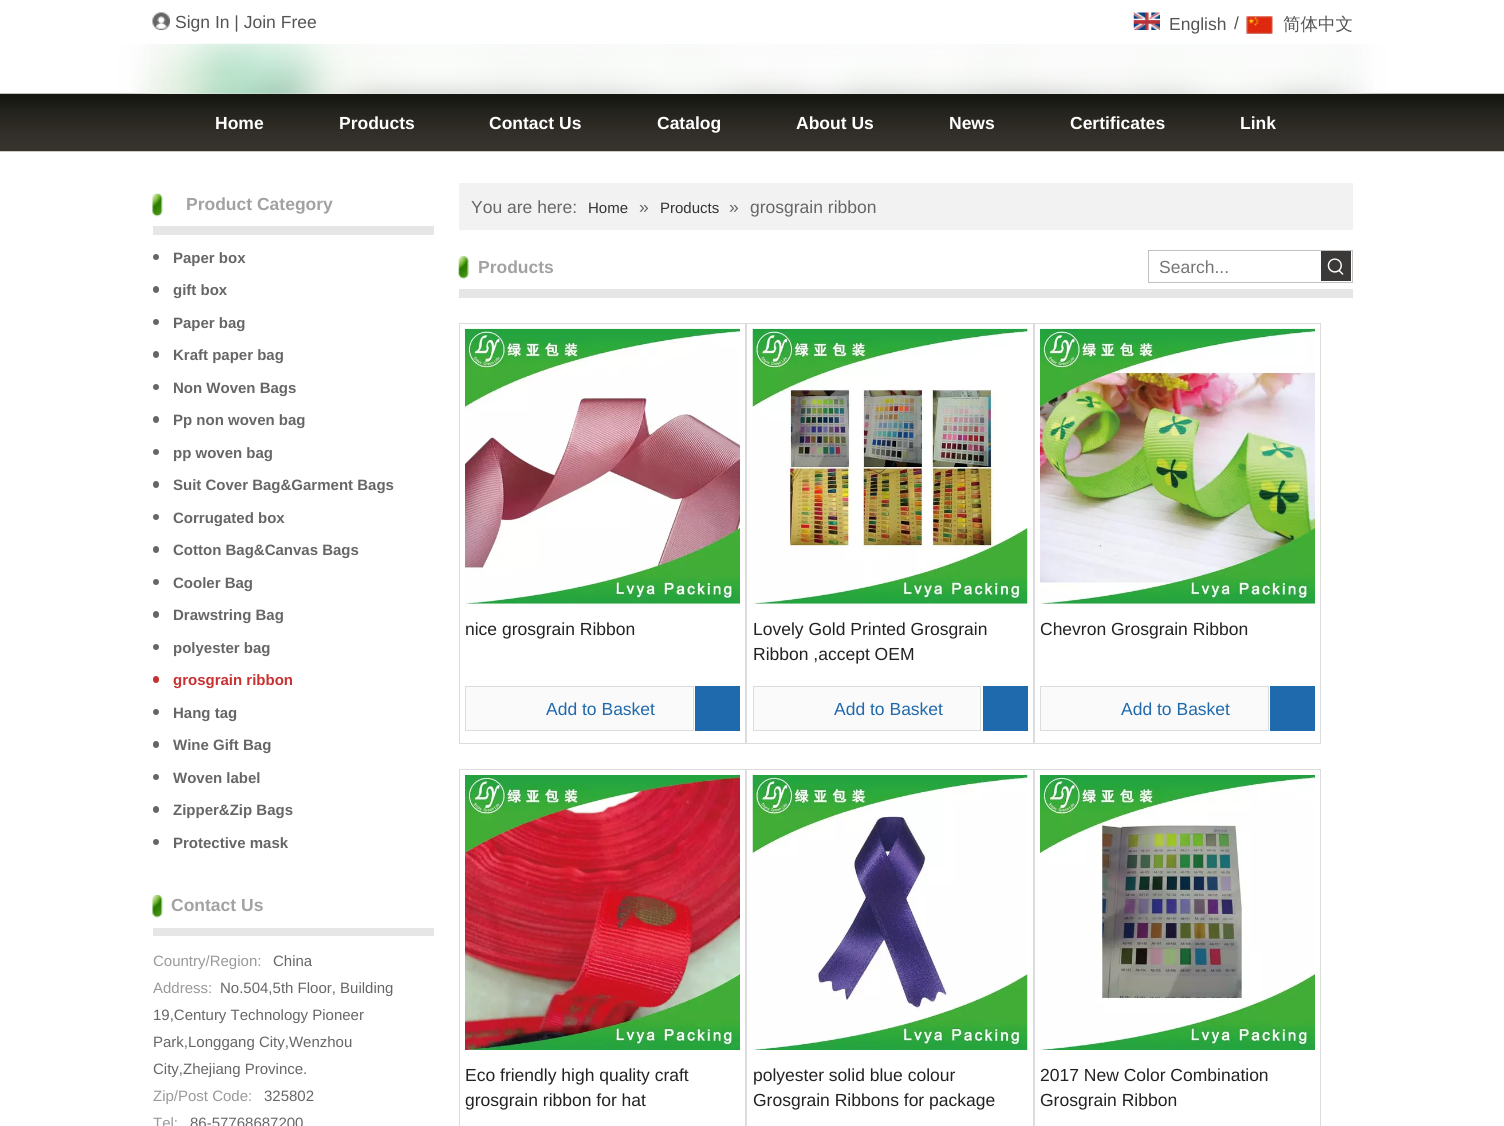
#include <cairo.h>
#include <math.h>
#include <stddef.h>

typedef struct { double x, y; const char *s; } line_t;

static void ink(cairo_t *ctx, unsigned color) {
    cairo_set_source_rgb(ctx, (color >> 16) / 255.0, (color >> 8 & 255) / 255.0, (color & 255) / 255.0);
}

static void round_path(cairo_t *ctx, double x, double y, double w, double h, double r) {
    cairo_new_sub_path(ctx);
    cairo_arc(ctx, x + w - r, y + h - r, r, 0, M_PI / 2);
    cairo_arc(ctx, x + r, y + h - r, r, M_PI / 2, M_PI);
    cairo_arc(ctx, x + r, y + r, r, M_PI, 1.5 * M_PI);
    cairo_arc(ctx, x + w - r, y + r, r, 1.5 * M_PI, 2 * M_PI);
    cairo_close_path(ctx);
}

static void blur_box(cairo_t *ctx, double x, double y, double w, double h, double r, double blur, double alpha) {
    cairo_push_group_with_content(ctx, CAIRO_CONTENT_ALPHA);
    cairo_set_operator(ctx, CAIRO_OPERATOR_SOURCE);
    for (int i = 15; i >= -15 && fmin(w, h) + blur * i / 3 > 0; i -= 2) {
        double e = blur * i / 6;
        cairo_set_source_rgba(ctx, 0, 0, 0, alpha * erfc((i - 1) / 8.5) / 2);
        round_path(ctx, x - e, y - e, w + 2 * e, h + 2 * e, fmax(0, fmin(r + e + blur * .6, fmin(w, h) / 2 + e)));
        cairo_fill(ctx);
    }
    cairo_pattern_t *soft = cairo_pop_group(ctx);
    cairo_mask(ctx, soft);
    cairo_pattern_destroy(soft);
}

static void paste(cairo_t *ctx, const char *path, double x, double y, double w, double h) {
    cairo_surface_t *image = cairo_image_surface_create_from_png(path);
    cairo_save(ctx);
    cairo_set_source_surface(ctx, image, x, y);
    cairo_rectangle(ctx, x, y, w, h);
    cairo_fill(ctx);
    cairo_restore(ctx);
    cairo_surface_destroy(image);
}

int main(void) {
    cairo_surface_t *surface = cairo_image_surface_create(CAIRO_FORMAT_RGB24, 1504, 1126);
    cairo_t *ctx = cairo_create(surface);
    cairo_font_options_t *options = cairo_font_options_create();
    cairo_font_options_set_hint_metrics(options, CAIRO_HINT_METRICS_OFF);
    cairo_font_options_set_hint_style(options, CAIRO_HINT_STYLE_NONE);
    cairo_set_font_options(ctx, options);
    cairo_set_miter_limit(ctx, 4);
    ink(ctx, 0xFFFFFF);
    cairo_paint(ctx);
    paste(ctx, "media/2.png", 152, 12, 18, 18);
    paste(ctx, "media/3.png", 1133, 12, 27, 18);
    paste(ctx, "media/4.png", 1246, 16, 27, 18);
    paste(ctx, "media/5.png", 0, 93, 1504, 59);
    paste(ctx, "media/6.png", 152, 193, 11, 24);
    ink(ctx, 0xE6E6E6);
    cairo_rectangle(ctx, 153, 226, 281, 9);
    cairo_fill(ctx);
    ink(ctx, 0x666666);
    cairo_arc(ctx, 156, 257, 3, 0, 2 * M_PI);
    cairo_fill(ctx);
    ink(ctx, 0xF2F2F2);
    cairo_rectangle(ctx, 459, 183, 894, 47);
    cairo_fill(ctx);
    paste(ctx, "media/8.png", 458, 256, 11, 23);
    cairo_rectangle(ctx, 1148.5, 250.5, 204, 32);
    ink(ctx, 0xC1C1C0);
    cairo_set_line_width(ctx, 1);
    cairo_stroke(ctx);
    ink(ctx, 0x3B3937);
    cairo_rectangle(ctx, 1321, 251, 30, 30);
    cairo_fill(ctx);
    paste(ctx, "media/9.png", 1327, 258, 17, 17);
    cairo_save(ctx);
    cairo_rectangle(ctx, 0, 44, 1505, 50);
    cairo_clip(ctx);
    ink(ctx, 0xF0F1F2);
    blur_box(ctx, 153, 44, 1200, 160, 0, 19, 1);
    cairo_restore(ctx);
    paste(ctx, "media/1.png", 132, 43, 1241, 51);
    cairo_select_font_face(ctx, "Liberation Sans", CAIRO_FONT_SLANT_NORMAL, CAIRO_FONT_WEIGHT_NORMAL);
    cairo_set_font_size(ctx, 17.5);
    ink(ctx, 0x545454);
    {
        static const line_t items[] = {
            {175, 28, "Sign In | Join Free"},
            {1169, 30, "English"},
            {1234, 29, "/"},
        };
        for (size_t i = 0; i < sizeof items / sizeof *items; i++) {
            cairo_move_to(ctx, items[i].x, items[i].y);
            cairo_show_text(ctx, items[i].s);
        }
    }
    cairo_select_font_face(ctx, "WenQuanYi Zen Hei Medium", CAIRO_FONT_SLANT_NORMAL, CAIRO_FONT_WEIGHT_NORMAL);
    cairo_move_to(ctx, 1283, 30);
    cairo_show_text(ctx, "简体中文");
    cairo_select_font_face(ctx, "Liberation Sans", CAIRO_FONT_SLANT_NORMAL, CAIRO_FONT_WEIGHT_BOLD);
    ink(ctx, 0xFFFFFF);
    {
        static const line_t items[] = {
            {215, 129, "Home"},
            {339, 129, "Products"},
            {489, 129, "Contact Us"},
            {657, 129, "Catalog"},
            {796, 129, "About Us"},
            {949, 129, "News"},
            {1070, 129, "Certificates"},
            {1240, 129, "Link"},
        };
        for (size_t i = 0; i < sizeof items / sizeof *items; i++) {
            cairo_move_to(ctx, items[i].x, items[i].y);
            cairo_show_text(ctx, items[i].s);
        }
    }
    ink(ctx, 0xA2A2A2);
    cairo_move_to(ctx, 186, 210);
    cairo_show_text(ctx, "Product Category");
    cairo_set_font_size(ctx, 15);
    ink(ctx, 0x666666);
    cairo_move_to(ctx, 173, 263);
    cairo_show_text(ctx, "Paper box");
    round_path(ctx, 153, 286, 6, 7, 3);
    cairo_fill(ctx);
    cairo_move_to(ctx, 173, 295);
    cairo_show_text(ctx, "gift box");
    cairo_new_path(ctx);
    cairo_arc(ctx, 156, 322, 3, 0, 2 * M_PI);
    cairo_fill(ctx);
    cairo_move_to(ctx, 173, 328);
    cairo_show_text(ctx, "Paper bag");
    round_path(ctx, 153, 351, 6, 7, 3);
    cairo_fill(ctx);
    cairo_move_to(ctx, 173, 360);
    cairo_show_text(ctx, "Kraft paper bag");
    cairo_new_path(ctx);
    cairo_arc(ctx, 156, 387, 3, 0, 2 * M_PI);
    cairo_fill(ctx);
    cairo_move_to(ctx, 173, 393);
    cairo_show_text(ctx, "Non Woven Bags");
    round_path(ctx, 153, 416, 6, 7, 3);
    cairo_fill(ctx);
    cairo_move_to(ctx, 173, 425);
    cairo_show_text(ctx, "Pp non woven bag");
    cairo_new_path(ctx);
    cairo_arc(ctx, 156, 452, 3, 0, 2 * M_PI);
    cairo_fill(ctx);
    cairo_move_to(ctx, 173, 458);
    cairo_show_text(ctx, "pp woven bag");
    round_path(ctx, 153, 481, 6, 7, 3);
    cairo_fill(ctx);
    cairo_move_to(ctx, 173, 490);
    cairo_show_text(ctx, "Suit Cover Bag&Garment Bags");
    cairo_new_path(ctx);
    cairo_arc(ctx, 156, 517, 3, 0, 2 * M_PI);
    cairo_fill(ctx);
    cairo_move_to(ctx, 173, 523);
    cairo_show_text(ctx, "Corrugated box");
    round_path(ctx, 153, 546, 6, 7, 3);
    cairo_fill(ctx);
    cairo_move_to(ctx, 173, 555);
    cairo_show_text(ctx, "Cotton Bag&Canvas Bags");
    cairo_new_path(ctx);
    cairo_arc(ctx, 156, 582, 3, 0, 2 * M_PI);
    cairo_fill(ctx);
    cairo_move_to(ctx, 173, 588);
    cairo_show_text(ctx, "Cooler Bag");
    round_path(ctx, 153, 611, 6, 7, 3);
    cairo_fill(ctx);
    cairo_move_to(ctx, 173, 620);
    cairo_show_text(ctx, "Drawstring Bag");
    cairo_new_path(ctx);
    cairo_arc(ctx, 156, 647, 3, 0, 2 * M_PI);
    cairo_fill(ctx);
    cairo_move_to(ctx, 173, 653);
    cairo_show_text(ctx, "polyester bag");
    ink(ctx, 0xC83131);
    round_path(ctx, 153, 676, 6, 7, 3);
    cairo_fill(ctx);
    cairo_move_to(ctx, 173, 685);
    cairo_show_text(ctx, "grosgrain ribbon");
    ink(ctx, 0x666666);
    cairo_new_path(ctx);
    cairo_arc(ctx, 156, 712, 3, 0, 2 * M_PI);
    cairo_fill(ctx);
    cairo_move_to(ctx, 173, 718);
    cairo_show_text(ctx, "Hang tag");
    round_path(ctx, 153, 741, 6, 7, 3);
    cairo_fill(ctx);
    cairo_move_to(ctx, 173, 750);
    cairo_show_text(ctx, "Wine Gift Bag");
    cairo_new_path(ctx);
    cairo_arc(ctx, 156, 777, 3, 0, 2 * M_PI);
    cairo_fill(ctx);
    cairo_move_to(ctx, 173, 783);
    cairo_show_text(ctx, "Woven label");
    round_path(ctx, 153, 806, 6, 7, 3);
    cairo_fill(ctx);
    cairo_move_to(ctx, 173, 815);
    cairo_show_text(ctx, "Zipper&Zip Bags");
    cairo_new_path(ctx);
    cairo_arc(ctx, 156, 842, 3, 0, 2 * M_PI);
    cairo_fill(ctx);
    cairo_move_to(ctx, 173, 848);
    cairo_show_text(ctx, "Protective mask");
    paste(ctx, "media/7.png", 152, 895, 11, 23);
    ink(ctx, 0xE6E6E6);
    cairo_rectangle(ctx, 153, 928, 281, 8);
    cairo_fill(ctx);
    cairo_set_font_size(ctx, 17.5);
    ink(ctx, 0xA2A2A2);
    cairo_move_to(ctx, 171, 911);
    cairo_show_text(ctx, "Contact Us");
    cairo_select_font_face(ctx, "Liberation Sans", CAIRO_FONT_SLANT_NORMAL, CAIRO_FONT_WEIGHT_NORMAL);
    cairo_set_font_size(ctx, 15);
    ink(ctx, 0x999999);
    cairo_move_to(ctx, 153, 966);
    cairo_show_text(ctx, "Country/Region:");
    ink(ctx, 0x666666);
    cairo_move_to(ctx, 273, 966);
    cairo_show_text(ctx, "China");
    ink(ctx, 0x999999);
    cairo_move_to(ctx, 153, 993);
    cairo_show_text(ctx, "Address:");
    ink(ctx, 0x666666);
    {
        static const line_t items[] = {
            {220, 993, "No.504,5th Floor, Building"},
            {153, 1020, "19,Century Technology Pioneer"},
            {153, 1047, "Park,Longgang City,Wenzhou"},
            {153, 1074, "City,Zhejiang Province."},
        };
        for (size_t i = 0; i < sizeof items / sizeof *items; i++) {
            cairo_move_to(ctx, items[i].x, items[i].y);
            cairo_show_text(ctx, items[i].s);
        }
    }
    ink(ctx, 0x999999);
    cairo_move_to(ctx, 153, 1101);
    cairo_show_text(ctx, "Zip/Post Code:");
    ink(ctx, 0x666666);
    cairo_move_to(ctx, 264, 1101);
    cairo_show_text(ctx, "325802");
    ink(ctx, 0x999999);
    cairo_move_to(ctx, 153, 1128);
    cairo_show_text(ctx, "Tel:");
    ink(ctx, 0x666666);
    cairo_move_to(ctx, 190, 1128);
    cairo_show_text(ctx, "86-57768687200");
    cairo_set_font_size(ctx, 17.5);
    cairo_move_to(ctx, 471, 213);
    cairo_show_text(ctx, "You are here:");
    cairo_set_font_size(ctx, 15);
    ink(ctx, 0x333333);
    cairo_move_to(ctx, 588, 213);
    cairo_show_text(ctx, "Home");
    cairo_set_font_size(ctx, 17.5);
    ink(ctx, 0x666666);
    cairo_move_to(ctx, 639, 213);
    cairo_show_text(ctx, "»");
    cairo_set_font_size(ctx, 15);
    ink(ctx, 0x333333);
    cairo_move_to(ctx, 660, 213);
    cairo_show_text(ctx, "Products");
    cairo_set_font_size(ctx, 17.5);
    ink(ctx, 0x666666);
    cairo_move_to(ctx, 729, 213);
    cairo_show_text(ctx, "»");
    cairo_move_to(ctx, 750, 213);
    cairo_show_text(ctx, "grosgrain ribbon");
    cairo_select_font_face(ctx, "Liberation Sans", CAIRO_FONT_SLANT_NORMAL, CAIRO_FONT_WEIGHT_BOLD);
    ink(ctx, 0xA2A2A2);
    cairo_move_to(ctx, 478, 273);
    cairo_show_text(ctx, "Products");
    cairo_select_font_face(ctx, "Liberation Sans", CAIRO_FONT_SLANT_NORMAL, CAIRO_FONT_WEIGHT_NORMAL);
    ink(ctx, 0x757575);
    cairo_move_to(ctx, 1159, 273);
    cairo_show_text(ctx, "Search...");
    ink(ctx, 0xE6E6E6);
    cairo_rectangle(ctx, 459, 289, 894, 9);
    cairo_fill(ctx);
    cairo_rectangle(ctx, 459.5, 323.5, 286, 420);
    ink(ctx, 0xDCDCDC);
    cairo_stroke(ctx);
    paste(ctx, "media/10.png", 465, 328, 275, 276);
    ink(ctx, 0x222222);
    cairo_move_to(ctx, 465, 635);
    cairo_show_text(ctx, "nice grosgrain Ribbon");
    ink(ctx, 0xFAFAFA);
    cairo_rectangle(ctx, 465.5, 686.5, 228, 44);
    cairo_fill_preserve(ctx);
    ink(ctx, 0xDCDCDC);
    cairo_stroke(ctx);
    ink(ctx, 0x1F69AD);
    cairo_move_to(ctx, 546, 715);
    cairo_show_text(ctx, "Add to Basket");
    cairo_rectangle(ctx, 695, 686, 45, 45);
    cairo_fill(ctx);
    cairo_rectangle(ctx, 746.5, 323.5, 287, 420);
    ink(ctx, 0xDCDCDC);
    cairo_stroke(ctx);
    paste(ctx, "media/11.png", 752, 328, 276, 276);
    ink(ctx, 0x222222);
    cairo_move_to(ctx, 753, 635);
    cairo_show_text(ctx, "Lovely Gold Printed Grosgrain");
    cairo_move_to(ctx, 753, 660);
    cairo_show_text(ctx, "Ribbon ,accept OEM");
    ink(ctx, 0xFAFAFA);
    cairo_rectangle(ctx, 753.5, 686.5, 227, 44);
    cairo_fill_preserve(ctx);
    ink(ctx, 0xDCDCDC);
    cairo_stroke(ctx);
    ink(ctx, 0x1F69AD);
    cairo_move_to(ctx, 834, 715);
    cairo_show_text(ctx, "Add to Basket");
    cairo_rectangle(ctx, 983, 686, 45, 45);
    cairo_fill(ctx);
    cairo_rectangle(ctx, 1034.5, 323.5, 286, 420);
    ink(ctx, 0xDCDCDC);
    cairo_stroke(ctx);
    paste(ctx, "media/12.png", 1040, 328, 275, 276);
    ink(ctx, 0x222222);
    cairo_move_to(ctx, 1040, 635);
    cairo_show_text(ctx, "Chevron Grosgrain Ribbon");
    ink(ctx, 0xFAFAFA);
    cairo_rectangle(ctx, 1040.5, 686.5, 228, 44);
    cairo_fill_preserve(ctx);
    ink(ctx, 0xDCDCDC);
    cairo_stroke(ctx);
    ink(ctx, 0x1F69AD);
    cairo_move_to(ctx, 1121, 715);
    cairo_show_text(ctx, "Add to Basket");
    cairo_rectangle(ctx, 1270, 686, 45, 45);
    cairo_fill(ctx);
    cairo_rectangle(ctx, 459.5, 769.5, 286, 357);
    ink(ctx, 0xDCDCDC);
    cairo_stroke(ctx);
    paste(ctx, "media/13.png", 465, 775, 275, 275);
    ink(ctx, 0x222222);
    cairo_move_to(ctx, 465, 1081);
    cairo_show_text(ctx, "Eco friendly high quality craft");
    cairo_move_to(ctx, 465, 1106);
    cairo_show_text(ctx, "grosgrain ribbon for hat");
    cairo_rectangle(ctx, 746.5, 769.5, 287, 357);
    ink(ctx, 0xDCDCDC);
    cairo_stroke(ctx);
    paste(ctx, "media/14.png", 752, 775, 276, 275);
    ink(ctx, 0x222222);
    cairo_move_to(ctx, 753, 1081);
    cairo_show_text(ctx, "polyester solid blue colour");
    cairo_move_to(ctx, 753, 1106);
    cairo_show_text(ctx, "Grosgrain Ribbons for package");
    cairo_rectangle(ctx, 1034.5, 769.5, 286, 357);
    ink(ctx, 0xDCDCDC);
    cairo_stroke(ctx);
    paste(ctx, "media/15.png", 1040, 775, 275, 275);
    ink(ctx, 0x222222);
    cairo_move_to(ctx, 1040, 1081);
    cairo_show_text(ctx, "2017 New Color Combination");
    cairo_move_to(ctx, 1040, 1106);
    cairo_show_text(ctx, "Grosgrain Ribbon");
    cairo_surface_write_to_png(surface, "image.png");
    cairo_font_options_destroy(options);
    cairo_destroy(ctx);
    cairo_surface_destroy(surface);
    return 0;
}
